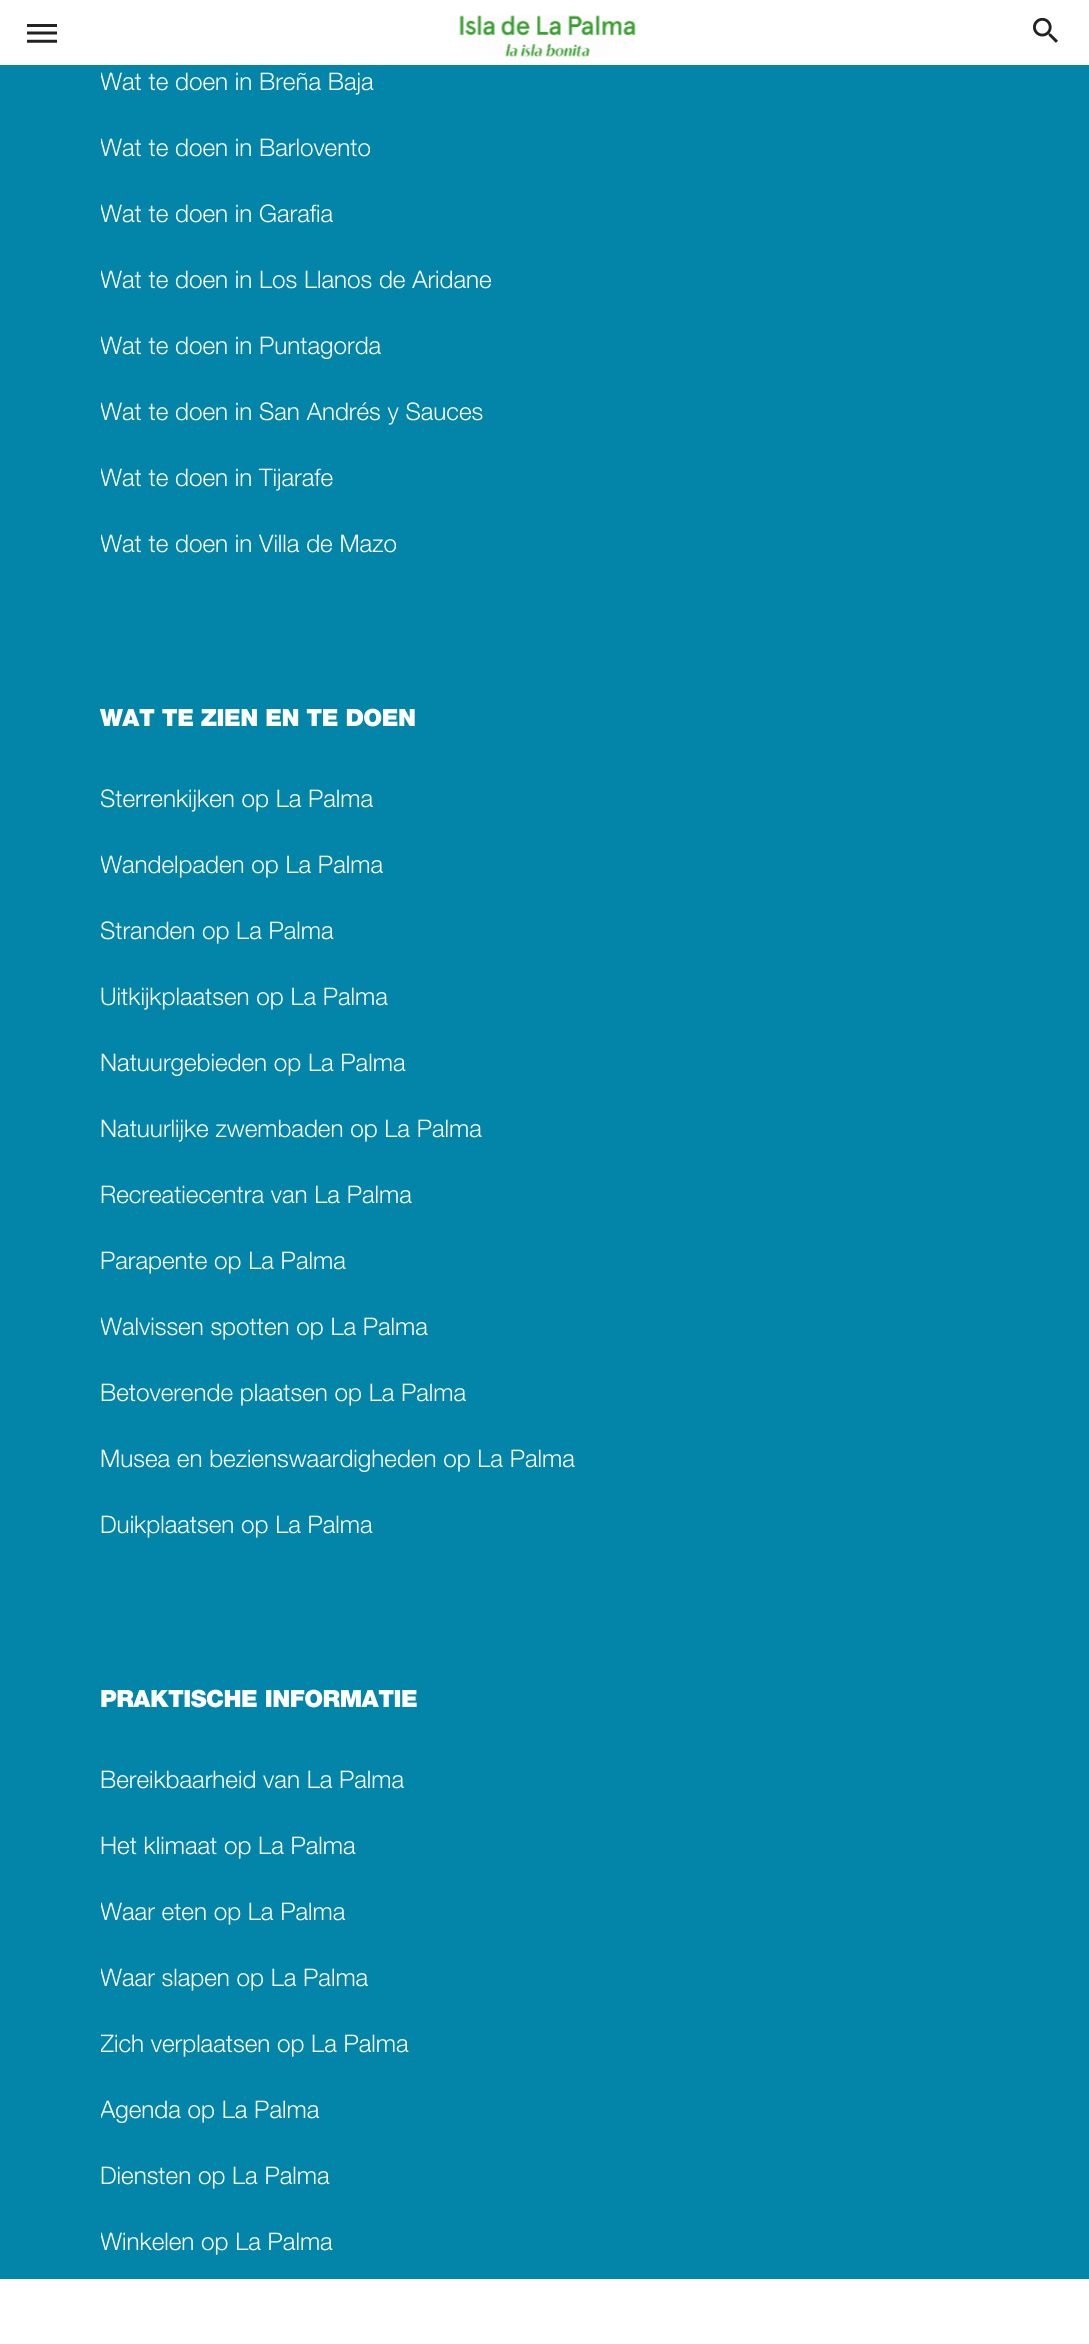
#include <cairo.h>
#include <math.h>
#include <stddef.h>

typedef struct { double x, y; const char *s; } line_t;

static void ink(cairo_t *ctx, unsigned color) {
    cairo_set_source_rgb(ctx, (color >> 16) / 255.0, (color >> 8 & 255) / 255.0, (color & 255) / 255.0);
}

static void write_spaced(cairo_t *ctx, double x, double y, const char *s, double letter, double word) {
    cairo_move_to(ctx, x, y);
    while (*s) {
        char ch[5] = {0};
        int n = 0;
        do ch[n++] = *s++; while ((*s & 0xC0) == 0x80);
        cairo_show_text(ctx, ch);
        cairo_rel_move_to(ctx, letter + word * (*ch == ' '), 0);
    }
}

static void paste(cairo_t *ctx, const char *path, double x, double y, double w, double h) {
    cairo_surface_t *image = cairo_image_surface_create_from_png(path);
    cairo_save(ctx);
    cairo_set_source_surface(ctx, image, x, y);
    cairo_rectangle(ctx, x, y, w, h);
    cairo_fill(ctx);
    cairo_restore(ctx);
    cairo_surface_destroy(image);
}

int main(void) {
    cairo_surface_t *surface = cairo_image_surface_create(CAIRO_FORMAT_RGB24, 1089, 2344);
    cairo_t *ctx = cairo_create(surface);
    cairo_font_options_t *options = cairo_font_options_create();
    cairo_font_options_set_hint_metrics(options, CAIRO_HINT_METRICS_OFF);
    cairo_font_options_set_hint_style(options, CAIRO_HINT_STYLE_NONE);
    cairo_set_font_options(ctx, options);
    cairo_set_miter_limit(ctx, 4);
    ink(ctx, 0xFFFFFF);
    cairo_paint(ctx);
    paste(ctx, "media/1.png", 27, 24, 30, 19);
    paste(ctx, "media/2.png", 459, 15, 177, 42);
    paste(ctx, "media/3.png", 1033, 17, 25, 26);
    ink(ctx, 0x0285A8);
    cairo_rectangle(ctx, 0, 65, 1089, 2214);
    cairo_fill(ctx);
    cairo_save(ctx);
    cairo_rectangle(ctx, 101, 71, 889, 30);
    cairo_clip(ctx);
    cairo_select_font_face(ctx, "Helvetica Neue Light", CAIRO_FONT_SLANT_NORMAL, CAIRO_FONT_WEIGHT_NORMAL);
    cairo_set_font_size(ctx, 24.25);
    ink(ctx, 0xFFFFFF);
    cairo_move_to(ctx, 100, 90);
    cairo_show_text(ctx, "Wat te doen in Breña Baja");
    cairo_restore(ctx);
    cairo_save(ctx);
    cairo_rectangle(ctx, 101, 137, 889, 30);
    cairo_clip(ctx);
    cairo_select_font_face(ctx, "Helvetica Neue Light", CAIRO_FONT_SLANT_NORMAL, CAIRO_FONT_WEIGHT_NORMAL);
    cairo_set_font_size(ctx, 24.25);
    ink(ctx, 0xFFFFFF);
    cairo_move_to(ctx, 100, 156);
    cairo_show_text(ctx, "Wat te doen in Barlovento");
    cairo_restore(ctx);
    cairo_save(ctx);
    cairo_rectangle(ctx, 101, 203, 889, 30);
    cairo_clip(ctx);
    cairo_select_font_face(ctx, "Helvetica Neue Light", CAIRO_FONT_SLANT_NORMAL, CAIRO_FONT_WEIGHT_NORMAL);
    cairo_set_font_size(ctx, 24.25);
    ink(ctx, 0xFFFFFF);
    cairo_move_to(ctx, 100, 222);
    cairo_show_text(ctx, "Wat te doen in Garafia");
    cairo_restore(ctx);
    cairo_save(ctx);
    cairo_rectangle(ctx, 101, 269, 889, 30);
    cairo_clip(ctx);
    cairo_select_font_face(ctx, "Helvetica Neue Light", CAIRO_FONT_SLANT_NORMAL, CAIRO_FONT_WEIGHT_NORMAL);
    cairo_set_font_size(ctx, 24.25);
    ink(ctx, 0xFFFFFF);
    cairo_move_to(ctx, 100, 288);
    cairo_show_text(ctx, "Wat te doen in Los Llanos de Aridane");
    cairo_restore(ctx);
    cairo_save(ctx);
    cairo_rectangle(ctx, 101, 335, 889, 30);
    cairo_clip(ctx);
    cairo_select_font_face(ctx, "Helvetica Neue Light", CAIRO_FONT_SLANT_NORMAL, CAIRO_FONT_WEIGHT_NORMAL);
    cairo_set_font_size(ctx, 24.25);
    ink(ctx, 0xFFFFFF);
    cairo_move_to(ctx, 100, 354);
    cairo_show_text(ctx, "Wat te doen in Puntagorda");
    cairo_restore(ctx);
    cairo_save(ctx);
    cairo_rectangle(ctx, 101, 401, 889, 30);
    cairo_clip(ctx);
    cairo_select_font_face(ctx, "Helvetica Neue Light", CAIRO_FONT_SLANT_NORMAL, CAIRO_FONT_WEIGHT_NORMAL);
    cairo_set_font_size(ctx, 24.25);
    ink(ctx, 0xFFFFFF);
    cairo_move_to(ctx, 100, 420);
    cairo_show_text(ctx, "Wat te doen in San Andrés y Sauces");
    cairo_restore(ctx);
    cairo_save(ctx);
    cairo_rectangle(ctx, 101, 467, 889, 30);
    cairo_clip(ctx);
    cairo_select_font_face(ctx, "Helvetica Neue Light", CAIRO_FONT_SLANT_NORMAL, CAIRO_FONT_WEIGHT_NORMAL);
    cairo_set_font_size(ctx, 24.25);
    ink(ctx, 0xFFFFFF);
    cairo_move_to(ctx, 100, 486);
    cairo_show_text(ctx, "Wat te doen in Tijarafe");
    cairo_restore(ctx);
    cairo_save(ctx);
    cairo_rectangle(ctx, 101, 533, 889, 30);
    cairo_clip(ctx);
    cairo_select_font_face(ctx, "Helvetica Neue Light", CAIRO_FONT_SLANT_NORMAL, CAIRO_FONT_WEIGHT_NORMAL);
    cairo_set_font_size(ctx, 24.25);
    ink(ctx, 0xFFFFFF);
    cairo_move_to(ctx, 100, 552);
    cairo_show_text(ctx, "Wat te doen in Villa de Mazo");
    cairo_restore(ctx);
    cairo_select_font_face(ctx, "Helvetica Neue Black", CAIRO_FONT_SLANT_NORMAL, CAIRO_FONT_WEIGHT_NORMAL);
    cairo_set_font_size(ctx, 23.75);
    ink(ctx, 0xFFFFFF);
    write_spaced(ctx, 100, 726, "WAT TE ZIEN EN TE DOEN", -0.5, 0);
    cairo_save(ctx);
    cairo_rectangle(ctx, 101, 788, 889, 30);
    cairo_clip(ctx);
    cairo_select_font_face(ctx, "Helvetica Neue Light", CAIRO_FONT_SLANT_NORMAL, CAIRO_FONT_WEIGHT_NORMAL);
    cairo_set_font_size(ctx, 24.25);
    cairo_move_to(ctx, 100, 807);
    cairo_show_text(ctx, "Sterrenkijken op La Palma");
    cairo_restore(ctx);
    cairo_save(ctx);
    cairo_rectangle(ctx, 101, 854, 889, 30);
    cairo_clip(ctx);
    cairo_select_font_face(ctx, "Helvetica Neue Light", CAIRO_FONT_SLANT_NORMAL, CAIRO_FONT_WEIGHT_NORMAL);
    cairo_set_font_size(ctx, 24.25);
    cairo_move_to(ctx, 100, 873);
    cairo_show_text(ctx, "Wandelpaden op La Palma");
    cairo_restore(ctx);
    cairo_save(ctx);
    cairo_rectangle(ctx, 101, 920, 889, 30);
    cairo_clip(ctx);
    cairo_select_font_face(ctx, "Helvetica Neue Light", CAIRO_FONT_SLANT_NORMAL, CAIRO_FONT_WEIGHT_NORMAL);
    cairo_set_font_size(ctx, 24.25);
    cairo_move_to(ctx, 100, 939);
    cairo_show_text(ctx, "Stranden op La Palma");
    cairo_restore(ctx);
    cairo_select_font_face(ctx, "Helvetica Neue Light", CAIRO_FONT_SLANT_NORMAL, CAIRO_FONT_WEIGHT_NORMAL);
    cairo_set_font_size(ctx, 24.25);
    {
        static const line_t items[] = {
            {100, 1005, "Uitkijkplaatsen op La Palma"},
            {100, 1071, "Natuurgebieden op La Palma"},
            {100, 1137, "Natuurlijke zwembaden op La Palma"},
            {100, 1203, "Recreatiecentra van La Palma"},
            {100, 1269, "Parapente op La Palma"},
        };
        for (size_t i = 0; i < sizeof items / sizeof *items; i++) {
            cairo_move_to(ctx, items[i].x, items[i].y);
            cairo_show_text(ctx, items[i].s);
        }
    }
    cairo_save(ctx);
    cairo_rectangle(ctx, 101, 1316, 889, 30);
    cairo_clip(ctx);
    cairo_move_to(ctx, 100, 1335);
    cairo_show_text(ctx, "Walvissen spotten op La Palma");
    cairo_restore(ctx);
    {
        static const line_t items[] = {
            {100, 1401, "Betoverende plaatsen op La Palma"},
            {100, 1467, "Musea en bezienswaardigheden op La Palma"},
            {100, 1533, "Duikplaatsen op La Palma"},
        };
        for (size_t i = 0; i < sizeof items / sizeof *items; i++) {
            cairo_move_to(ctx, items[i].x, items[i].y);
            cairo_show_text(ctx, items[i].s);
        }
    }
    cairo_select_font_face(ctx, "Helvetica Neue Black", CAIRO_FONT_SLANT_NORMAL, CAIRO_FONT_WEIGHT_NORMAL);
    cairo_set_font_size(ctx, 23.75);
    write_spaced(ctx, 100, 1707, "PRAKTISCHE INFORMATIE", -0.5, 0);
    cairo_select_font_face(ctx, "Helvetica Neue Light", CAIRO_FONT_SLANT_NORMAL, CAIRO_FONT_WEIGHT_NORMAL);
    cairo_set_font_size(ctx, 24.25);
    cairo_move_to(ctx, 100, 1788);
    cairo_show_text(ctx, "Bereikbaarheid van La Palma");
    cairo_move_to(ctx, 100, 1854);
    cairo_show_text(ctx, "Het klimaat op La Palma");
    cairo_save(ctx);
    cairo_rectangle(ctx, 101, 1901, 889, 30);
    cairo_clip(ctx);
    cairo_move_to(ctx, 100, 1920);
    cairo_show_text(ctx, "Waar eten op La Palma");
    cairo_restore(ctx);
    cairo_save(ctx);
    cairo_rectangle(ctx, 101, 1967, 889, 30);
    cairo_clip(ctx);
    cairo_move_to(ctx, 100, 1986);
    cairo_show_text(ctx, "Waar slapen op La Palma");
    cairo_restore(ctx);
    cairo_save(ctx);
    cairo_rectangle(ctx, 101, 2033, 889, 30);
    cairo_clip(ctx);
    cairo_move_to(ctx, 100, 2052);
    cairo_show_text(ctx, "Zich verplaatsen op La Palma");
    cairo_restore(ctx);
    cairo_save(ctx);
    cairo_rectangle(ctx, 101, 2099, 889, 30);
    cairo_clip(ctx);
    cairo_move_to(ctx, 100, 2118);
    cairo_show_text(ctx, "Agenda op La Palma");
    cairo_restore(ctx);
    cairo_move_to(ctx, 100, 2184);
    cairo_show_text(ctx, "Diensten op La Palma");
    cairo_save(ctx);
    cairo_rectangle(ctx, 101, 2231, 889, 30);
    cairo_clip(ctx);
    cairo_move_to(ctx, 100, 2250);
    cairo_show_text(ctx, "Winkelen op La Palma");
    cairo_restore(ctx);
    cairo_surface_write_to_png(surface, "image.png");
    cairo_font_options_destroy(options);
    cairo_destroy(ctx);
    cairo_surface_destroy(surface);
    return 0;
}
